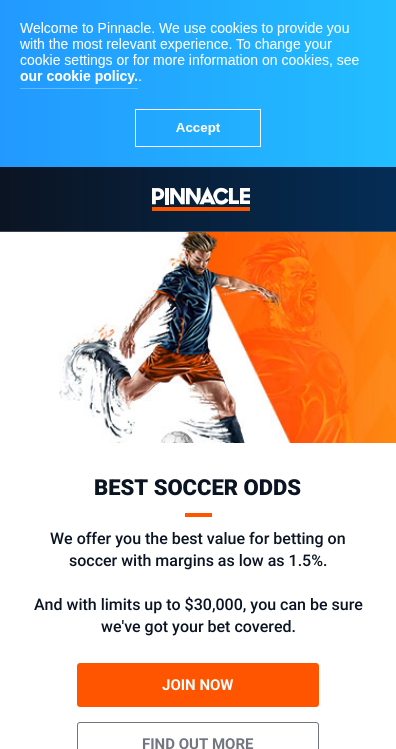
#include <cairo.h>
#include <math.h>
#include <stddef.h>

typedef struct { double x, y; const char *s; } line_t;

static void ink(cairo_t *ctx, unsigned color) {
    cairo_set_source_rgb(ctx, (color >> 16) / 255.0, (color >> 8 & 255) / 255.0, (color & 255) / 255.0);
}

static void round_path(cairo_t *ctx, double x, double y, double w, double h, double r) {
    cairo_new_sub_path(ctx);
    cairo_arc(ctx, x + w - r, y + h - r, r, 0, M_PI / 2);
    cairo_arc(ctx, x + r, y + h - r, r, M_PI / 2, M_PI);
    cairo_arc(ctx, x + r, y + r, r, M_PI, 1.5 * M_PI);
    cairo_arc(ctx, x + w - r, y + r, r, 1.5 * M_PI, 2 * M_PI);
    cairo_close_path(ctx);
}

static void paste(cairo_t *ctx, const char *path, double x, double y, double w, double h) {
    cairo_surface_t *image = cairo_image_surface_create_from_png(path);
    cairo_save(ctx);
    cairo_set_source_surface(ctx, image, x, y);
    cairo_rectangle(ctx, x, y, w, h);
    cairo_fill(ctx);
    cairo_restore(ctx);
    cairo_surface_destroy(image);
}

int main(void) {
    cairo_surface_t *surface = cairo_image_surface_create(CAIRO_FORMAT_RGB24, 396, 749);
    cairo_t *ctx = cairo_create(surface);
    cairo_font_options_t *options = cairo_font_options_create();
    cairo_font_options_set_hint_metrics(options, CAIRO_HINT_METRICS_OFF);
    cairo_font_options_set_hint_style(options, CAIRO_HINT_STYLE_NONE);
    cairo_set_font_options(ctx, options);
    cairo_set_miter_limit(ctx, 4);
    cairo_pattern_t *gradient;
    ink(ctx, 0xFFFFFF);
    cairo_paint(ctx);
    paste(ctx, "media/1.png", 0, 0, 396, 167);
    gradient = cairo_pattern_create_linear(0, 199, 396, 199);
    cairo_pattern_add_color_stop_rgba(gradient, 0, 0.043, 0.078, 0.133, 1);
    cairo_pattern_add_color_stop_rgba(gradient, 1, 0.016, 0.176, 0.337, 1);
    cairo_set_source(ctx, gradient);
    cairo_pattern_destroy(gradient);
    cairo_rectangle(ctx, 0, 167, 396, 64);
    cairo_fill(ctx);
    gradient = cairo_pattern_create_linear(0, 199, 396, 199);
    cairo_pattern_add_color_stop_rgba(gradient, 0, 0.235, 0.263, 0.306, 1);
    cairo_pattern_add_color_stop_rgba(gradient, 1, 0.212, 0.341, 0.471, 1);
    cairo_set_source(ctx, gradient);
    cairo_pattern_destroy(gradient);
    cairo_rectangle(ctx, 0, 231, 396, 1);
    cairo_fill(ctx);
    paste(ctx, "media/2.png", 152, 187, 98, 24);
    paste(ctx, "media/3.png", 0, 232, 396, 211);
    cairo_select_font_face(ctx, "Roboto Black", CAIRO_FONT_SLANT_NORMAL, CAIRO_FONT_WEIGHT_NORMAL);
    cairo_set_font_size(ctx, 22);
    ink(ctx, 0x0B1422);
    cairo_move_to(ctx, 94, 495);
    cairo_show_text(ctx, "BEST SOCCER ODDS");
    ink(ctx, 0xFF5500);
    cairo_rectangle(ctx, 185, 513, 27, 4);
    cairo_fill(ctx);
    cairo_select_font_face(ctx, "Roboto Medium", CAIRO_FONT_SLANT_NORMAL, CAIRO_FONT_WEIGHT_NORMAL);
    cairo_set_font_size(ctx, 16);
    ink(ctx, 0x0B1422);
    {
        static const line_t items[] = {
            {50, 544, "We offer you the best value for betting on"},
            {69, 566, "soccer with margins as low as 1.5%."},
            {34, 610, "And with limits up to $30,000, you can be sure"},
            {101, 632, "we've got your bet covered."},
        };
        for (size_t i = 0; i < sizeof items / sizeof *items; i++) {
            cairo_move_to(ctx, items[i].x, items[i].y);
            cairo_show_text(ctx, items[i].s);
        }
    }
    ink(ctx, 0xFF5500);
    round_path(ctx, 77, 663, 242, 44, 3);
    cairo_fill(ctx);
    cairo_select_font_face(ctx, "Roboto", CAIRO_FONT_SLANT_NORMAL, CAIRO_FONT_WEIGHT_BOLD);
    cairo_set_font_size(ctx, 15);
    ink(ctx, 0xFFFFFF);
    cairo_move_to(ctx, 162, 690);
    cairo_show_text(ctx, "JOIN NOW");
    round_path(ctx, 77.5, 722.5, 241, 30, 2.5);
    ink(ctx, 0x72777F);
    cairo_set_line_width(ctx, 1);
    cairo_stroke(ctx);
    cairo_move_to(ctx, 142, 749);
    cairo_show_text(ctx, "FIND OUT MORE");
    cairo_surface_write_to_png(surface, "image.png");
    cairo_font_options_destroy(options);
    cairo_destroy(ctx);
    cairo_surface_destroy(surface);
    return 0;
}
